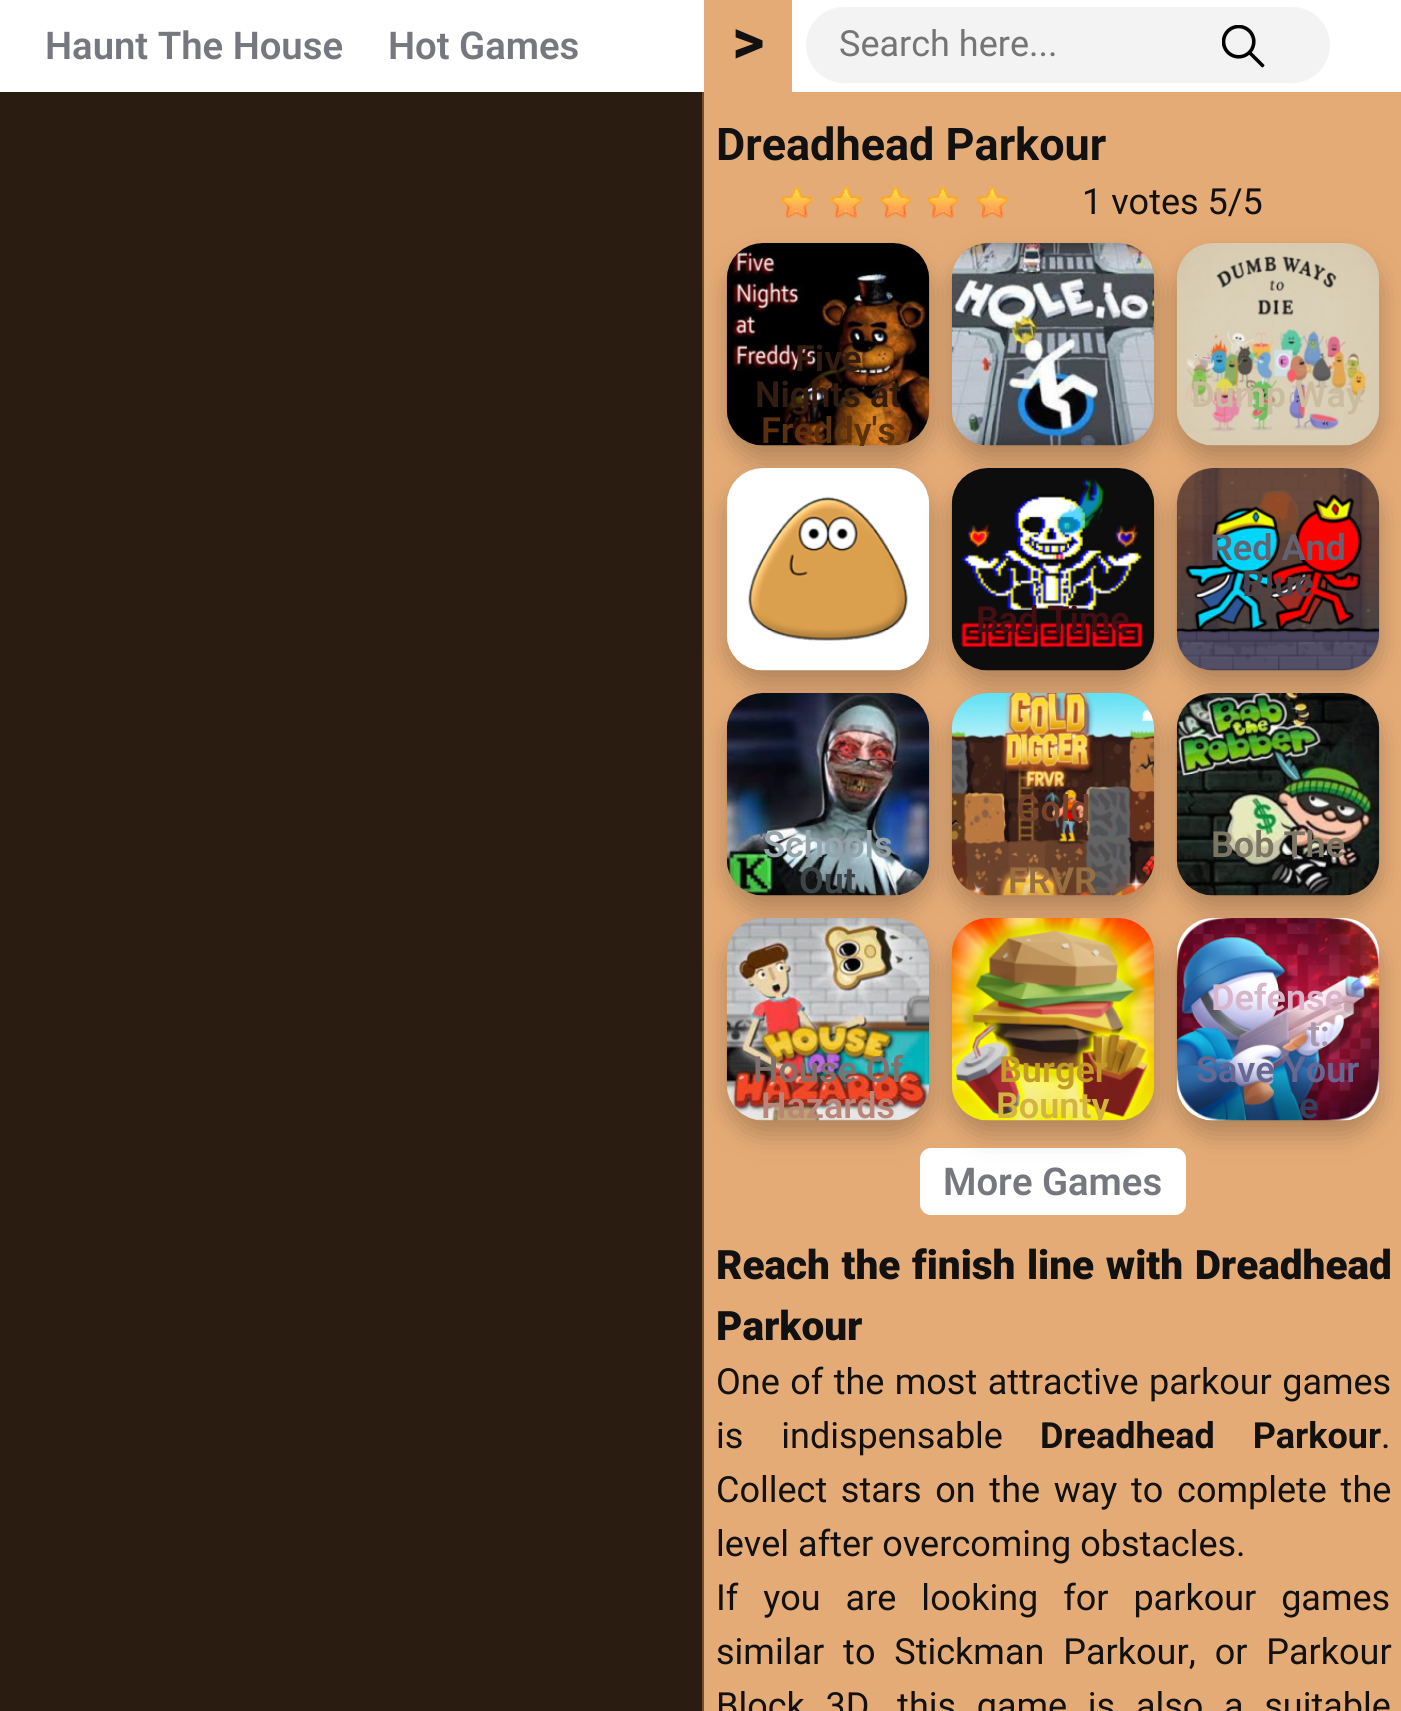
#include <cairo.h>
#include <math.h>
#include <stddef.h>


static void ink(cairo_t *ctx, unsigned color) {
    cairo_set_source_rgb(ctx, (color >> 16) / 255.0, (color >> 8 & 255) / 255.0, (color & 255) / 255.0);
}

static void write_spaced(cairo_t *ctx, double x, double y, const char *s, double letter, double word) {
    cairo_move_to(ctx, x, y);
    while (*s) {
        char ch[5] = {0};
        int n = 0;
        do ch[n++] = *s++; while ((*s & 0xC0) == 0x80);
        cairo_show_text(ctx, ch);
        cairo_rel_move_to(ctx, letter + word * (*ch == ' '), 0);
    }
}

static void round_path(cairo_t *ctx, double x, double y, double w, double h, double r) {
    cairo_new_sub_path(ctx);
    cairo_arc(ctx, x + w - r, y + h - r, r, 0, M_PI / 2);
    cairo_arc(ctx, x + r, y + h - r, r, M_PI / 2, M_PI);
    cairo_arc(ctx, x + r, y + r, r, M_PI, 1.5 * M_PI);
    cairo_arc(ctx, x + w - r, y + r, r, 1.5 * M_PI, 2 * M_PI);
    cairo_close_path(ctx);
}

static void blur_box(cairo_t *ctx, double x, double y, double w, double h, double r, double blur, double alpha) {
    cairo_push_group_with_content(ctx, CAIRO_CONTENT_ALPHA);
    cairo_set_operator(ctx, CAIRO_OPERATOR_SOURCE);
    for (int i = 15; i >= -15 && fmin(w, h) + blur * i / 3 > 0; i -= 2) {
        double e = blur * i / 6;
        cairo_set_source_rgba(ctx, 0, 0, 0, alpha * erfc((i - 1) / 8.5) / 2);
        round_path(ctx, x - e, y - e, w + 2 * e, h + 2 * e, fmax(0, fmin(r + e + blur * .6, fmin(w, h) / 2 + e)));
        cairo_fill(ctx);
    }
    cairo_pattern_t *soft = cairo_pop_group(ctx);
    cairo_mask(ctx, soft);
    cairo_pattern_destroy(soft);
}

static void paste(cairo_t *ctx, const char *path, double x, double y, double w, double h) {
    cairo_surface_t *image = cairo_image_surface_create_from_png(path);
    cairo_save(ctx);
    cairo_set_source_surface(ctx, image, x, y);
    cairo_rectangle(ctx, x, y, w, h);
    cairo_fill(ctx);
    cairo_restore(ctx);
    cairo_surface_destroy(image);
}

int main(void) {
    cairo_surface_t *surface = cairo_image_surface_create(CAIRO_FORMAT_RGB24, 1401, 1711);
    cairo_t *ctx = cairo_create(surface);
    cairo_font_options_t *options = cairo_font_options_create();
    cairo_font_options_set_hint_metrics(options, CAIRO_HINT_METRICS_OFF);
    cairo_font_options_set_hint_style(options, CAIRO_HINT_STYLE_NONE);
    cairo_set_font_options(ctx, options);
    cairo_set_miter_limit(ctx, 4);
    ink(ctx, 0x744E2B);
    cairo_paint(ctx);
    ink(ctx, 0x6F4C2C);
    cairo_new_path(ctx);
    cairo_move_to(ctx, 0, 92);
    cairo_line_to(ctx, 0, 95);
    cairo_line_to(ctx, 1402, 95);
    cairo_line_to(ctx, 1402, 2);
    cairo_line_to(ctx, 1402, 92);
    cairo_close_path(ctx);
    cairo_fill(ctx);
    ink(ctx, 0xFFFFFF);
    cairo_rectangle(ctx, 0, 0, 1401, 92);
    cairo_fill(ctx);
    cairo_select_font_face(ctx, "Roboto SemiBold", CAIRO_FONT_SLANT_NORMAL, CAIRO_FONT_WEIGHT_NORMAL);
    cairo_set_font_size(ctx, 38.25);
    ink(ctx, 0x777780);
    cairo_move_to(ctx, 45, 59);
    cairo_show_text(ctx, "Haunt The House");
    cairo_move_to(ctx, 388, 59);
    cairo_show_text(ctx, "Hot Games");
    ink(ctx, 0xF3F3F3);
    round_path(ctx, 806, 7, 524, 76, 38);
    cairo_fill(ctx);
    cairo_select_font_face(ctx, "Roboto", CAIRO_FONT_SLANT_NORMAL, CAIRO_FONT_WEIGHT_NORMAL);
    cairo_set_font_size(ctx, 36);
    ink(ctx, 0x757575);
    cairo_move_to(ctx, 839, 56);
    cairo_show_text(ctx, "Search here...");
    paste(ctx, "media/1.png", 1222, 25, 43, 43);
    cairo_set_source_rgba(ctx, 0, 0, 0, 0.64);
    cairo_rectangle(ctx, 0, 92, 702, 1619);
    cairo_fill(ctx);
    ink(ctx, 0xE5AB76);
    cairo_rectangle(ctx, 704, 92, 697, 1619);
    cairo_fill(ctx);
    cairo_rectangle(ctx, 704, 0, 88, 92);
    cairo_fill(ctx);
    cairo_select_font_face(ctx, "Roboto", CAIRO_FONT_SLANT_NORMAL, CAIRO_FONT_WEIGHT_BOLD);
    cairo_set_font_size(ctx, 63);
    ink(ctx, 0x111111);
    cairo_move_to(ctx, 732, 63);
    cairo_show_text(ctx, ">");
    cairo_set_font_size(ctx, 45);
    cairo_move_to(ctx, 716, 160);
    cairo_show_text(ctx, "Dreadhead Parkour");
    paste(ctx, "media/2.png", 780, 186, 34, 32);
    paste(ctx, "media/3.png", 830, 186, 33, 32);
    paste(ctx, "media/4.png", 879, 186, 34, 32);
    paste(ctx, "media/5.png", 927, 186, 33, 32);
    paste(ctx, "media/6.png", 976, 186, 33, 32);
    cairo_select_font_face(ctx, "Roboto", CAIRO_FONT_SLANT_NORMAL, CAIRO_FONT_WEIGHT_NORMAL);
    cairo_set_font_size(ctx, 36);
    cairo_move_to(ctx, 1082, 214);
    cairo_show_text(ctx, "1 votes 5/5");
    ink(ctx, 0x000000);
    blur_box(ctx, 727, 257, 202, 202, 36, 13.5, 0.24);
    paste(ctx, "media/7.png", 726, 243, 204, 203);
    cairo_select_font_face(ctx, "Roboto SemiBold", CAIRO_FONT_SLANT_NORMAL, CAIRO_FONT_WEIGHT_NORMAL);
    ink(ctx, 0x331D11);
    cairo_move_to(ctx, 795, 371);
    cairo_show_text(ctx, "Five");
    cairo_move_to(ctx, 755, 407);
    cairo_show_text(ctx, "Nights at");
    ink(ctx, 0x000000);
    blur_box(ctx, 952, 257, 202, 202, 36, 13.5, 0.24);
    paste(ctx, "media/8.png", 951, 243, 204, 203);
    blur_box(ctx, 727, 482, 202, 202, 36, 13.5, 0.24);
    cairo_save(ctx);
    round_path(ctx, 727, 243, 202, 203, 36);
    cairo_clip(ctx);
    ink(ctx, 0x5B310D);
    cairo_move_to(ctx, 761, 443);
    cairo_show_text(ctx, "Freddy's");
    cairo_restore(ctx);
    blur_box(ctx, 1177, 257, 202, 202, 36, 13.5, 0.24);
    paste(ctx, "media/9.png", 1176, 243, 204, 203);
    ink(ctx, 0xCBBC9F);
    cairo_move_to(ctx, 1191, 407);
    cairo_show_text(ctx, "Dump Way");
    paste(ctx, "media/10.png", 726, 468, 204, 203);
    ink(ctx, 0x000000);
    blur_box(ctx, 952, 482, 202, 202, 36, 13.5, 0.24);
    paste(ctx, "media/12.png", 951, 468, 204, 203);
    blur_box(ctx, 1177, 482, 202, 202, 36, 13.5, 0.24);
    paste(ctx, "media/11.png", 1176, 468, 204, 203);
    ink(ctx, 0x636472);
    cairo_move_to(ctx, 1210, 560);
    cairo_show_text(ctx, "Red And");
    ink(ctx, 0x4E4349);
    cairo_move_to(ctx, 1242, 596);
    cairo_show_text(ctx, "Blue");
    ink(ctx, 0x440E13);
    cairo_move_to(ctx, 976, 632);
    cairo_show_text(ctx, "Bad Time");
    ink(ctx, 0x000000);
    blur_box(ctx, 727, 707, 202, 202, 36, 13.5, 0.24);
    paste(ctx, "media/13.png", 726, 693, 204, 203);
    ink(ctx, 0x95A4AB);
    cairo_move_to(ctx, 763, 857);
    cairo_show_text(ctx, "Schools");
    ink(ctx, 0x000000);
    blur_box(ctx, 952, 707, 202, 202, 36, 13.5, 0.24);
    paste(ctx, "media/14.png", 951, 693, 204, 203);
    ink(ctx, 0xFFFFFF);
    round_path(ctx, 920, 1148, 266, 67, 11);
    cairo_fill(ctx);
    ink(ctx, 0x000000);
    blur_box(ctx, 727, 932, 202, 202, 36, 13.5, 0.24);
    ink(ctx, 0x3C4648);
    cairo_move_to(ctx, 799, 893);
    cairo_show_text(ctx, "Out");
    ink(ctx, 0x77432C);
    cairo_move_to(ctx, 1016, 821);
    cairo_show_text(ctx, "Gold");
    ink(ctx, 0x000000);
    blur_box(ctx, 1177, 707, 202, 202, 36, 13.5, 0.24);
    paste(ctx, "media/15.png", 1176, 693, 204, 203);
    paste(ctx, "media/16.png", 726, 918, 204, 203);
    blur_box(ctx, 952, 932, 202, 202, 36, 13.5, 0.24);
    ink(ctx, 0x986F3E);
    cairo_move_to(ctx, 1008, 893);
    cairo_show_text(ctx, "FRVR");
    ink(ctx, 0x7C7564);
    cairo_move_to(ctx, 1211, 857);
    cairo_show_text(ctx, "Bob The");
    ink(ctx, 0x82706C);
    cairo_move_to(ctx, 753, 1082);
    cairo_show_text(ctx, "House Of");
    ink(ctx, 0xBB8677);
    cairo_move_to(ctx, 761, 1118);
    cairo_show_text(ctx, "Hazards");
    paste(ctx, "media/17.png", 951, 918, 204, 203);
    ink(ctx, 0xC29B29);
    cairo_move_to(ctx, 999, 1082);
    cairo_show_text(ctx, "Burger");
    cairo_save(ctx);
    round_path(ctx, 952, 918, 202, 203, 36);
    cairo_clip(ctx);
    ink(ctx, 0xD3B441);
    cairo_move_to(ctx, 996, 1118);
    cairo_show_text(ctx, "Bounty");
    cairo_restore(ctx);
    ink(ctx, 0x000000);
    blur_box(ctx, 1177, 932, 202, 202, 36, 13.5, 0.24);
    paste(ctx, "media/18.png", 1176, 918, 204, 203);
    ink(ctx, 0xD8B5C9);
    cairo_move_to(ctx, 1211, 1010);
    cairo_show_text(ctx, "Defense");
    ink(ctx, 0xA798AC);
    cairo_move_to(ctx, 1308, 1046);
    cairo_show_text(ctx, "t:");
    ink(ctx, 0x676792);
    cairo_move_to(ctx, 1196, 1082);
    cairo_show_text(ctx, "Save Your");
    ink(ctx, 0x2F4461);
    cairo_move_to(ctx, 1299, 1118);
    cairo_show_text(ctx, "e");
    cairo_set_font_size(ctx, 38.25);
    ink(ctx, 0x777780);
    cairo_move_to(ctx, 943, 1195);
    cairo_show_text(ctx, "More Games");
    cairo_select_font_face(ctx, "Roboto Black", CAIRO_FONT_SLANT_NORMAL, CAIRO_FONT_WEIGHT_NORMAL);
    cairo_set_font_size(ctx, 40.5);
    ink(ctx, 0x111111);
    write_spaced(ctx, 716, 1279, "Reach the finish line with Dreadhead", 0, 1.5);
    cairo_move_to(ctx, 716, 1340);
    cairo_show_text(ctx, "Parkour");
    cairo_select_font_face(ctx, "Roboto", CAIRO_FONT_SLANT_NORMAL, CAIRO_FONT_WEIGHT_NORMAL);
    cairo_set_font_size(ctx, 36);
    write_spaced(ctx, 716, 1394, "One of the most attractive parkour games", 0, 1.5);
    write_spaced(ctx, 716, 1448, "is indispensable", 0, 29);
    cairo_select_font_face(ctx, "Roboto", CAIRO_FONT_SLANT_NORMAL, CAIRO_FONT_WEIGHT_BOLD);
    write_spaced(ctx, 1040, 1448, "Dreadhead Parkour", 0, 29);
    cairo_select_font_face(ctx, "Roboto", CAIRO_FONT_SLANT_NORMAL, CAIRO_FONT_WEIGHT_NORMAL);
    cairo_move_to(ctx, 1381, 1448);
    cairo_show_text(ctx, ".");
    write_spaced(ctx, 716, 1502, "Collect stars on the way to complete the", 0, 4.75);
    cairo_move_to(ctx, 716, 1556);
    cairo_show_text(ctx, "level after overcoming obstacles.");
    write_spaced(ctx, 716, 1610, "If you are looking for parkour games", 0, 16);
    write_spaced(ctx, 716, 1664, "similar to Stickman Parkour, or Parkour", 0, 10);
    write_spaced(ctx, 716, 1718, "Block 3D, this game is also a suitable", 0, 11.75);
    cairo_surface_write_to_png(surface, "image.png");
    cairo_font_options_destroy(options);
    cairo_destroy(ctx);
    cairo_surface_destroy(surface);
    return 0;
}
